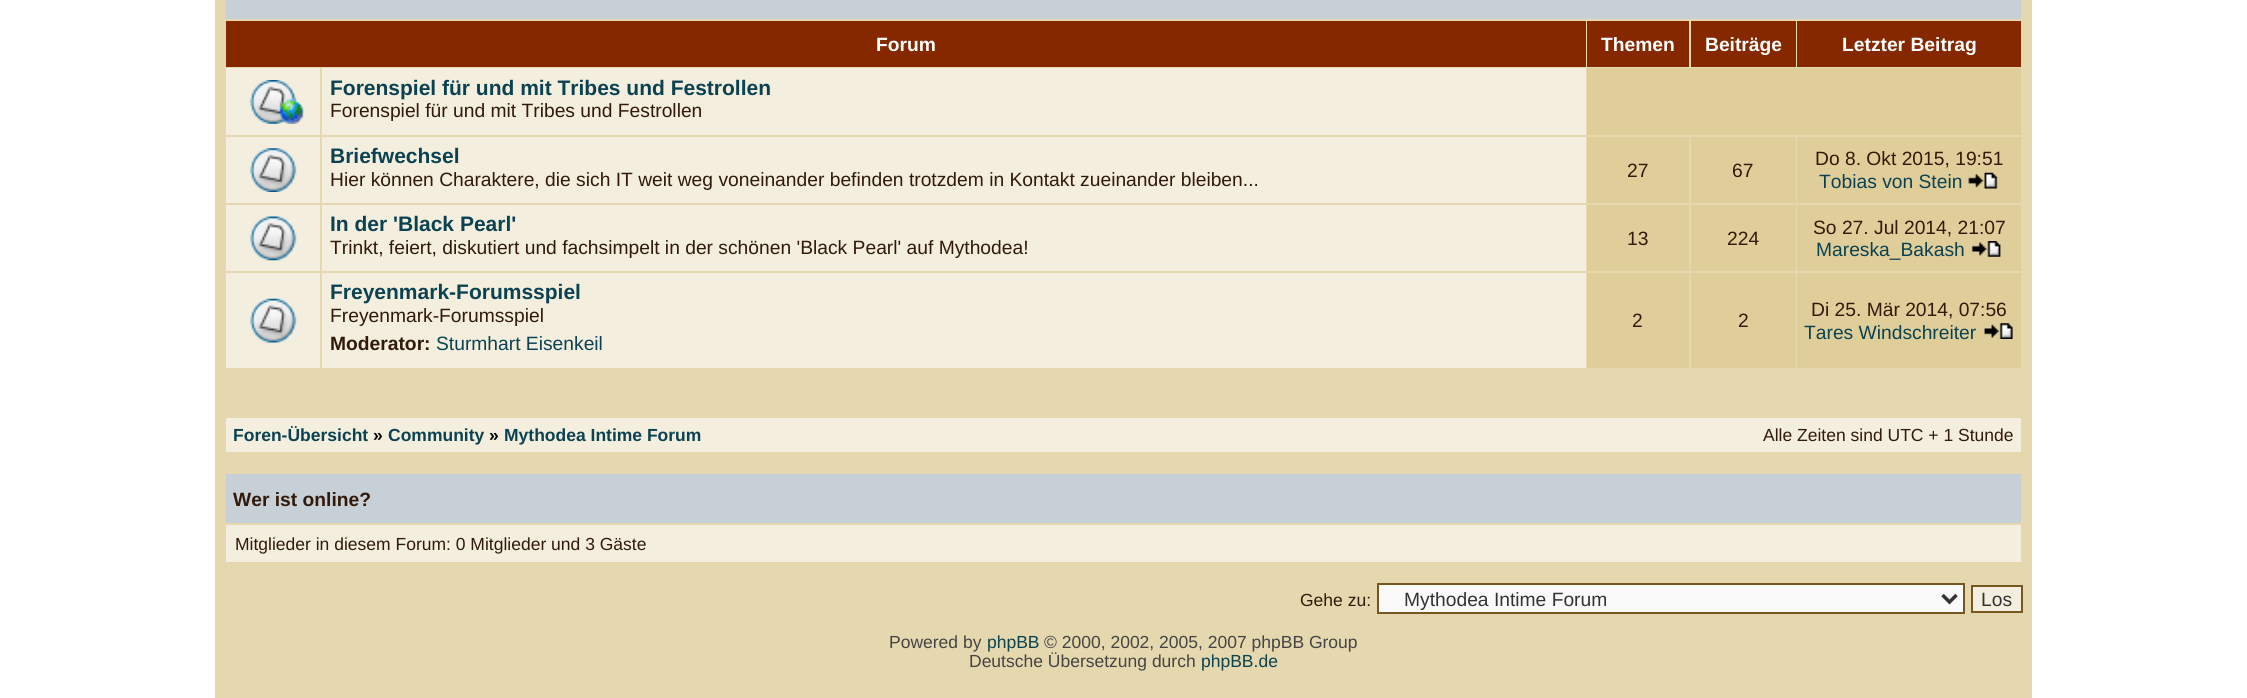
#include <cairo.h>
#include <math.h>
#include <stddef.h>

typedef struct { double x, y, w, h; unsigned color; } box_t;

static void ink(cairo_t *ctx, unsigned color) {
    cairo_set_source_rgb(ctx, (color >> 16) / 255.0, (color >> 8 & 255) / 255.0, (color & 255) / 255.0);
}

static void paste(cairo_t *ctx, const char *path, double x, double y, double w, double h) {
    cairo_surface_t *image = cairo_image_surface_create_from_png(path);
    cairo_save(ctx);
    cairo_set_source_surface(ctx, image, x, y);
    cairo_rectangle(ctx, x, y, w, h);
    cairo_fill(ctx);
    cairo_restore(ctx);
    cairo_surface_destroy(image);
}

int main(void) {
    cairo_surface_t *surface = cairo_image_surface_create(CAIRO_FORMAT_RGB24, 2247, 698);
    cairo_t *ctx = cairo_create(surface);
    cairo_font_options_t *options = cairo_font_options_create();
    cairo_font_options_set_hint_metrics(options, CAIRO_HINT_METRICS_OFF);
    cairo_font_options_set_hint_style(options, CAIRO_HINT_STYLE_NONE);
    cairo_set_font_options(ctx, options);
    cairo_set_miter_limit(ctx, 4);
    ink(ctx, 0xFFFFFF);
    cairo_paint(ctx);
    {
        static const box_t items[] = {
            {215, 0, 1817, 698, 0xE6D8AE},
            {226, 0, 1795, 19, 0xC7D0D7},
            {226, 21, 1360, 46, 0x852800},
        };
        for (size_t i = 0; i < sizeof items / sizeof *items; i++) {
            ink(ctx, items[i].color);
            cairo_rectangle(ctx, items[i].x, items[i].y, items[i].w, items[i].h);
            cairo_fill(ctx);
        }
    }
    cairo_select_font_face(ctx, "Liberation Sans", CAIRO_FONT_SLANT_NORMAL, CAIRO_FONT_WEIGHT_BOLD);
    cairo_set_font_size(ctx, 19.25);
    ink(ctx, 0xFFFFFF);
    cairo_move_to(ctx, 876, 51);
    cairo_show_text(ctx, "Forum");
    ink(ctx, 0x852800);
    cairo_rectangle(ctx, 1587, 21, 102, 46);
    cairo_fill(ctx);
    ink(ctx, 0xFFFFFF);
    cairo_move_to(ctx, 1601, 51);
    cairo_show_text(ctx, "Themen");
    ink(ctx, 0x852800);
    cairo_rectangle(ctx, 1691, 21, 105, 46);
    cairo_fill(ctx);
    ink(ctx, 0xFFFFFF);
    cairo_move_to(ctx, 1705, 51);
    cairo_show_text(ctx, "Beiträge");
    ink(ctx, 0x852800);
    cairo_rectangle(ctx, 1797, 21, 224, 46);
    cairo_fill(ctx);
    ink(ctx, 0xFFFFFF);
    cairo_move_to(ctx, 1842, 51);
    cairo_show_text(ctx, "Letzter Beitrag");
    ink(ctx, 0xF3EEDE);
    cairo_rectangle(ctx, 226, 68, 94, 67);
    cairo_fill(ctx);
    paste(ctx, "media/1.png", 249, 80, 56, 44);
    cairo_rectangle(ctx, 322, 68, 1264, 67);
    cairo_fill(ctx);
    cairo_set_font_size(ctx, 21);
    ink(ctx, 0x0B4251);
    cairo_move_to(ctx, 330, 95);
    cairo_show_text(ctx, "Forenspiel für und mit Tribes und Festrollen");
    cairo_select_font_face(ctx, "Liberation Sans", CAIRO_FONT_SLANT_NORMAL, CAIRO_FONT_WEIGHT_NORMAL);
    cairo_set_font_size(ctx, 19.25);
    ink(ctx, 0x311A09);
    cairo_move_to(ctx, 330, 117);
    cairo_show_text(ctx, "Forenspiel für und mit Tribes und Festrollen");
    ink(ctx, 0xDFCE9A);
    cairo_rectangle(ctx, 1587, 68, 434, 67);
    cairo_fill(ctx);
    ink(ctx, 0xF3EEDE);
    cairo_rectangle(ctx, 226, 137, 94, 66);
    cairo_fill(ctx);
    paste(ctx, "media/2.png", 249, 148, 48, 44);
    cairo_rectangle(ctx, 322, 137, 1264, 66);
    cairo_fill(ctx);
    cairo_select_font_face(ctx, "Liberation Sans", CAIRO_FONT_SLANT_NORMAL, CAIRO_FONT_WEIGHT_BOLD);
    cairo_set_font_size(ctx, 21);
    ink(ctx, 0x0B4251);
    cairo_move_to(ctx, 330, 163);
    cairo_show_text(ctx, "Briefwechsel");
    cairo_select_font_face(ctx, "Liberation Sans", CAIRO_FONT_SLANT_NORMAL, CAIRO_FONT_WEIGHT_NORMAL);
    cairo_set_font_size(ctx, 19.25);
    ink(ctx, 0x311A09);
    cairo_move_to(ctx, 330, 186);
    cairo_show_text(ctx, "Hier können Charaktere, die sich IT weit weg voneinander befinden trotzdem in Kontakt zueinander bleiben...");
    ink(ctx, 0xDFCE9A);
    cairo_rectangle(ctx, 1587, 137, 102, 66);
    cairo_fill(ctx);
    ink(ctx, 0x311A09);
    cairo_move_to(ctx, 1627, 177);
    cairo_show_text(ctx, "27");
    ink(ctx, 0xDFCE9A);
    cairo_rectangle(ctx, 1691, 137, 105, 66);
    cairo_fill(ctx);
    ink(ctx, 0x311A09);
    cairo_move_to(ctx, 1732, 177);
    cairo_show_text(ctx, "67");
    ink(ctx, 0xDFCE9A);
    cairo_rectangle(ctx, 1797, 137, 224, 66);
    cairo_fill(ctx);
    ink(ctx, 0x311A09);
    cairo_move_to(ctx, 1815, 165);
    cairo_show_text(ctx, "Do 8. Okt 2015, 19:51");
    ink(ctx, 0x0B4251);
    cairo_move_to(ctx, 1819, 188);
    cairo_show_text(ctx, "Tobias von Stein");
    paste(ctx, "media/3.png", 1968, 172, 30, 17);
    ink(ctx, 0xF3EEDE);
    cairo_rectangle(ctx, 226, 205, 94, 66);
    cairo_fill(ctx);
    paste(ctx, "media/4.png", 249, 216, 48, 45);
    cairo_rectangle(ctx, 322, 205, 1264, 66);
    cairo_fill(ctx);
    cairo_select_font_face(ctx, "Liberation Sans", CAIRO_FONT_SLANT_NORMAL, CAIRO_FONT_WEIGHT_BOLD);
    cairo_set_font_size(ctx, 21);
    ink(ctx, 0x0B4251);
    cairo_move_to(ctx, 330, 231);
    cairo_show_text(ctx, "In der 'Black Pearl'");
    cairo_select_font_face(ctx, "Liberation Sans", CAIRO_FONT_SLANT_NORMAL, CAIRO_FONT_WEIGHT_NORMAL);
    cairo_set_font_size(ctx, 19.25);
    ink(ctx, 0x311A09);
    cairo_move_to(ctx, 330, 254);
    cairo_show_text(ctx, "Trinkt, feiert, diskutiert und fachsimpelt in der schönen 'Black Pearl' auf Mythodea!");
    ink(ctx, 0xDFCE9A);
    cairo_rectangle(ctx, 1587, 205, 102, 66);
    cairo_fill(ctx);
    ink(ctx, 0x311A09);
    cairo_move_to(ctx, 1627, 245);
    cairo_show_text(ctx, "13");
    ink(ctx, 0xDFCE9A);
    cairo_rectangle(ctx, 1691, 205, 105, 66);
    cairo_fill(ctx);
    ink(ctx, 0x311A09);
    cairo_move_to(ctx, 1727, 245);
    cairo_show_text(ctx, "224");
    ink(ctx, 0xDFCE9A);
    cairo_rectangle(ctx, 1797, 205, 224, 66);
    cairo_fill(ctx);
    ink(ctx, 0x311A09);
    cairo_move_to(ctx, 1813, 234);
    cairo_show_text(ctx, "So 27. Jul 2014, 21:07");
    ink(ctx, 0x0B4251);
    cairo_move_to(ctx, 1816, 256);
    cairo_show_text(ctx, "Mareska_Bakash");
    paste(ctx, "media/5.png", 1971, 241, 30, 16);
    ink(ctx, 0xF3EEDE);
    cairo_rectangle(ctx, 226, 273, 94, 95);
    cairo_fill(ctx);
    paste(ctx, "media/6.png", 249, 298, 48, 45);
    cairo_rectangle(ctx, 322, 273, 1264, 95);
    cairo_fill(ctx);
    cairo_select_font_face(ctx, "Liberation Sans", CAIRO_FONT_SLANT_NORMAL, CAIRO_FONT_WEIGHT_BOLD);
    cairo_set_font_size(ctx, 21);
    ink(ctx, 0x0B4251);
    cairo_move_to(ctx, 330, 299);
    cairo_show_text(ctx, "Freyenmark-Forumsspiel");
    cairo_select_font_face(ctx, "Liberation Sans", CAIRO_FONT_SLANT_NORMAL, CAIRO_FONT_WEIGHT_NORMAL);
    cairo_set_font_size(ctx, 19.25);
    ink(ctx, 0x311A09);
    cairo_move_to(ctx, 330, 322);
    cairo_show_text(ctx, "Freyenmark-Forumsspiel");
    cairo_select_font_face(ctx, "Liberation Sans", CAIRO_FONT_SLANT_NORMAL, CAIRO_FONT_WEIGHT_BOLD);
    cairo_move_to(ctx, 330, 350);
    cairo_show_text(ctx, "Moderator:");
    cairo_select_font_face(ctx, "Liberation Sans", CAIRO_FONT_SLANT_NORMAL, CAIRO_FONT_WEIGHT_NORMAL);
    ink(ctx, 0x0B4251);
    cairo_move_to(ctx, 436, 350);
    cairo_show_text(ctx, "Sturmhart Eisenkeil");
    ink(ctx, 0xDFCE9A);
    cairo_rectangle(ctx, 1587, 273, 102, 95);
    cairo_fill(ctx);
    ink(ctx, 0x311A09);
    cairo_move_to(ctx, 1632, 327);
    cairo_show_text(ctx, "2");
    ink(ctx, 0xDFCE9A);
    cairo_rectangle(ctx, 1691, 273, 105, 95);
    cairo_fill(ctx);
    ink(ctx, 0x311A09);
    cairo_move_to(ctx, 1738, 327);
    cairo_show_text(ctx, "2");
    ink(ctx, 0xDFCE9A);
    cairo_rectangle(ctx, 1797, 273, 224, 95);
    cairo_fill(ctx);
    ink(ctx, 0x311A09);
    cairo_move_to(ctx, 1811, 316);
    cairo_show_text(ctx, "Di 25. Mär 2014, 07:56");
    ink(ctx, 0x0B4251);
    cairo_move_to(ctx, 1804, 339);
    cairo_show_text(ctx, "Tares Windschreiter");
    paste(ctx, "media/7.png", 1984, 323, 29, 16);
    ink(ctx, 0xF3EEDE);
    cairo_rectangle(ctx, 226, 418, 1795, 34);
    cairo_fill(ctx);
    cairo_select_font_face(ctx, "Liberation Sans", CAIRO_FONT_SLANT_NORMAL, CAIRO_FONT_WEIGHT_BOLD);
    cairo_set_font_size(ctx, 17.5);
    ink(ctx, 0x0B4251);
    cairo_move_to(ctx, 233, 441);
    cairo_show_text(ctx, "Foren-Übersicht");
    ink(ctx, 0x000000);
    cairo_move_to(ctx, 373, 441);
    cairo_show_text(ctx, "»");
    ink(ctx, 0x0B4251);
    cairo_move_to(ctx, 388, 441);
    cairo_show_text(ctx, "Community");
    ink(ctx, 0x000000);
    cairo_move_to(ctx, 489, 441);
    cairo_show_text(ctx, "»");
    ink(ctx, 0x0B4251);
    cairo_move_to(ctx, 504, 441);
    cairo_show_text(ctx, "Mythodea Intime Forum");
    cairo_select_font_face(ctx, "Liberation Sans", CAIRO_FONT_SLANT_NORMAL, CAIRO_FONT_WEIGHT_NORMAL);
    ink(ctx, 0x311A09);
    cairo_move_to(ctx, 1763, 441);
    cairo_show_text(ctx, "Alle Zeiten sind UTC + 1 Stunde");
    ink(ctx, 0xC7D0D7);
    cairo_rectangle(ctx, 226, 474, 1795, 49);
    cairo_fill(ctx);
    cairo_select_font_face(ctx, "Liberation Sans", CAIRO_FONT_SLANT_NORMAL, CAIRO_FONT_WEIGHT_BOLD);
    cairo_set_font_size(ctx, 19.25);
    ink(ctx, 0x311A09);
    cairo_move_to(ctx, 233, 506);
    cairo_show_text(ctx, "Wer ist online?");
    ink(ctx, 0xF3EEDE);
    cairo_rectangle(ctx, 226, 525, 1795, 37);
    cairo_fill(ctx);
    cairo_select_font_face(ctx, "Liberation Sans", CAIRO_FONT_SLANT_NORMAL, CAIRO_FONT_WEIGHT_NORMAL);
    cairo_set_font_size(ctx, 17.5);
    ink(ctx, 0x311A09);
    cairo_move_to(ctx, 235, 550);
    cairo_show_text(ctx, "Mitglieder in diesem Forum: 0 Mitglieder und 3 Gäste");
    cairo_move_to(ctx, 1300, 606);
    cairo_show_text(ctx, "Gehe zu:");
    ink(ctx, 0xFAFAFA);
    cairo_rectangle(ctx, 1378, 584, 586, 29);
    cairo_fill_preserve(ctx);
    ink(ctx, 0x775620);
    cairo_stroke(ctx);
    cairo_new_path(ctx);
    cairo_move_to(ctx, 1942.5, 595);
    cairo_line_to(ctx, 1949.5, 602);
    cairo_line_to(ctx, 1956.5, 595);
    ink(ctx, 0x333333);
    cairo_set_line_width(ctx, 3.5);
    cairo_stroke(ctx);
    cairo_set_font_size(ctx, 19.25);
    cairo_move_to(ctx, 1404, 606);
    cairo_show_text(ctx, "Mythodea Intime Forum");
    ink(ctx, 0xF3EEDE);
    cairo_rectangle(ctx, 1972, 586, 50, 26);
    cairo_fill_preserve(ctx);
    ink(ctx, 0x775620);
    cairo_set_line_width(ctx, 2);
    cairo_stroke(ctx);
    ink(ctx, 0x333333);
    cairo_move_to(ctx, 1981, 606);
    cairo_show_text(ctx, "Los");
    cairo_set_font_size(ctx, 17.5);
    ink(ctx, 0x444444);
    cairo_move_to(ctx, 889, 648);
    cairo_show_text(ctx, "Powered by");
    ink(ctx, 0x0B4251);
    cairo_move_to(ctx, 987, 648);
    cairo_show_text(ctx, "phpBB");
    ink(ctx, 0x444444);
    cairo_move_to(ctx, 1044, 648);
    cairo_show_text(ctx, "© 2000, 2002, 2005, 2007 phpBB Group");
    cairo_move_to(ctx, 969, 667);
    cairo_show_text(ctx, "Deutsche Übersetzung durch");
    ink(ctx, 0x0B4251);
    cairo_move_to(ctx, 1201, 667);
    cairo_show_text(ctx, "phpBB.de");
    cairo_surface_write_to_png(surface, "image.png");
    cairo_font_options_destroy(options);
    cairo_destroy(ctx);
    cairo_surface_destroy(surface);
    return 0;
}
